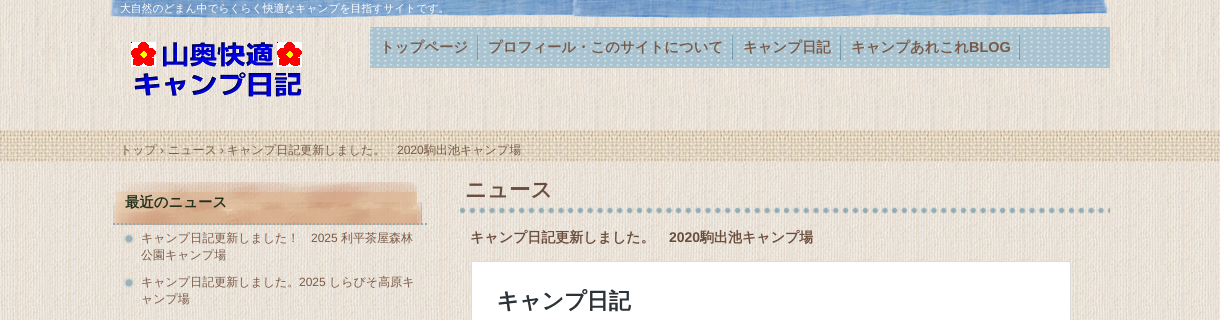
#include <cairo.h>
#include <math.h>
#include <stddef.h>


static void ink(cairo_t *ctx, unsigned color) {
    cairo_set_source_rgb(ctx, (color >> 16) / 255.0, (color >> 8 & 255) / 255.0, (color & 255) / 255.0);
}

static void paste(cairo_t *ctx, const char *path, double x, double y, double w, double h) {
    cairo_surface_t *image = cairo_image_surface_create_from_png(path);
    cairo_save(ctx);
    cairo_set_source_surface(ctx, image, x, y);
    cairo_rectangle(ctx, x, y, w, h);
    cairo_fill(ctx);
    cairo_restore(ctx);
    cairo_surface_destroy(image);
}

int main(void) {
    cairo_surface_t *surface = cairo_image_surface_create(CAIRO_FORMAT_RGB24, 1220, 320);
    cairo_t *ctx = cairo_create(surface);
    cairo_font_options_t *options = cairo_font_options_create();
    cairo_font_options_set_hint_metrics(options, CAIRO_HINT_METRICS_OFF);
    cairo_font_options_set_hint_style(options, CAIRO_HINT_STYLE_NONE);
    cairo_set_font_options(ctx, options);
    cairo_set_miter_limit(ctx, 4);
    ink(ctx, 0xFFFFFF);
    cairo_paint(ctx);
    paste(ctx, "media/1.png", 0, 162, 1220, 158);
    paste(ctx, "media/2.png", 0, 0, 1220, 162);
    paste(ctx, "media/3.png", 110, 0, 998, 18);
    cairo_select_font_face(ctx, "WenQuanYi Zen Hei Medium", CAIRO_FONT_SLANT_NORMAL, CAIRO_FONT_WEIGHT_NORMAL);
    cairo_set_font_size(ctx, 10.8);
    ink(ctx, 0xFFFFFF);
    cairo_move_to(ctx, 120, 12);
    cairo_show_text(ctx, "大自然のどまん中でらくらく快適なキャンプを目指すサイトです。");
    paste(ctx, "media/4.png", 131, 42, 171, 55);
    paste(ctx, "media/5.png", 370, 27, 740, 41);
    paste(ctx, "media/6.png", 477, 35, 1, 25);
    cairo_select_font_face(ctx, "WenQuanYi Zen Hei", CAIRO_FONT_SLANT_NORMAL, CAIRO_FONT_WEIGHT_BOLD);
    cairo_set_font_size(ctx, 14.4);
    ink(ctx, 0x785A48);
    cairo_move_to(ctx, 380, 52);
    cairo_show_text(ctx, "トップページ");
    paste(ctx, "media/6.png", 732, 35, 1, 25);
    cairo_move_to(ctx, 488, 52);
    cairo_show_text(ctx, "プロフィール・このサイトについて");
    paste(ctx, "media/6.png", 840, 35, 1, 25);
    cairo_move_to(ctx, 743, 52);
    cairo_show_text(ctx, "キャンプ日記");
    paste(ctx, "media/6.png", 1019, 35, 1, 25);
    cairo_move_to(ctx, 851, 52);
    cairo_show_text(ctx, "キャンプあれこれ");
    cairo_select_font_face(ctx, "Liberation Sans", CAIRO_FONT_SLANT_NORMAL, CAIRO_FONT_WEIGHT_BOLD);
    cairo_move_to(ctx, 969, 52);
    cairo_show_text(ctx, "BLOG");
    cairo_select_font_face(ctx, "WenQuanYi Zen Hei Medium", CAIRO_FONT_SLANT_NORMAL, CAIRO_FONT_WEIGHT_NORMAL);
    cairo_set_font_size(ctx, 12);
    cairo_move_to(ctx, 120, 154);
    cairo_show_text(ctx, "トップ");
    cairo_select_font_face(ctx, "Liberation Sans", CAIRO_FONT_SLANT_NORMAL, CAIRO_FONT_WEIGHT_NORMAL);
    cairo_move_to(ctx, 160, 154);
    cairo_show_text(ctx, "›");
    cairo_select_font_face(ctx, "WenQuanYi Zen Hei Medium", CAIRO_FONT_SLANT_NORMAL, CAIRO_FONT_WEIGHT_NORMAL);
    cairo_move_to(ctx, 168, 154);
    cairo_show_text(ctx, "ニュース");
    cairo_select_font_face(ctx, "Liberation Sans", CAIRO_FONT_SLANT_NORMAL, CAIRO_FONT_WEIGHT_NORMAL);
    cairo_move_to(ctx, 220, 154);
    cairo_show_text(ctx, "›");
    cairo_select_font_face(ctx, "WenQuanYi Zen Hei Medium", CAIRO_FONT_SLANT_NORMAL, CAIRO_FONT_WEIGHT_NORMAL);
    cairo_move_to(ctx, 227, 154);
    cairo_show_text(ctx, "キャンプ日記更新しました。");
    cairo_select_font_face(ctx, "Liberation Sans", CAIRO_FONT_SLANT_NORMAL, CAIRO_FONT_WEIGHT_NORMAL);
    cairo_move_to(ctx, 397, 154);
    cairo_show_text(ctx, "2020");
    cairo_select_font_face(ctx, "WenQuanYi Zen Hei Medium", CAIRO_FONT_SLANT_NORMAL, CAIRO_FONT_WEIGHT_NORMAL);
    cairo_move_to(ctx, 424, 154);
    cairo_show_text(ctx, "駒出池キャンプ場");
    paste(ctx, "media/7.png", 113, 182, 309, 43);
    cairo_new_path(ctx);
    cairo_move_to(ctx, 113, 224);
    cairo_line_to(ctx, 427, 224);
    ink(ctx, 0x92ACB5);
    cairo_set_dash(ctx, (double[]){2, 2}, 2, 0);
    cairo_stroke(ctx);
    cairo_select_font_face(ctx, "WenQuanYi Zen Hei", CAIRO_FONT_SLANT_NORMAL, CAIRO_FONT_WEIGHT_BOLD);
    cairo_set_font_size(ctx, 14.4);
    ink(ctx, 0x22301C);
    cairo_move_to(ctx, 125, 207);
    cairo_show_text(ctx, "最近のニュース");
    paste(ctx, "media/8.png", 123, 233, 12, 12);
    cairo_select_font_face(ctx, "WenQuanYi Zen Hei Medium", CAIRO_FONT_SLANT_NORMAL, CAIRO_FONT_WEIGHT_NORMAL);
    cairo_set_font_size(ctx, 12);
    ink(ctx, 0x785A48);
    cairo_move_to(ctx, 141, 242);
    cairo_show_text(ctx, "キャンプ日記更新しました！");
    cairo_select_font_face(ctx, "Liberation Sans", CAIRO_FONT_SLANT_NORMAL, CAIRO_FONT_WEIGHT_NORMAL);
    cairo_move_to(ctx, 311, 242);
    cairo_show_text(ctx, "2025");
    cairo_select_font_face(ctx, "WenQuanYi Zen Hei Medium", CAIRO_FONT_SLANT_NORMAL, CAIRO_FONT_WEIGHT_NORMAL);
    cairo_move_to(ctx, 341, 242);
    cairo_show_text(ctx, "利平茶屋森林");
    cairo_move_to(ctx, 141, 259);
    cairo_show_text(ctx, "公園キャンプ場");
    paste(ctx, "media/9.png", 123, 277, 12, 12);
    cairo_move_to(ctx, 141, 286);
    cairo_show_text(ctx, "キャンプ日記更新しました。");
    cairo_select_font_face(ctx, "Liberation Sans", CAIRO_FONT_SLANT_NORMAL, CAIRO_FONT_WEIGHT_NORMAL);
    cairo_move_to(ctx, 299, 286);
    cairo_show_text(ctx, "2025");
    cairo_select_font_face(ctx, "WenQuanYi Zen Hei Medium", CAIRO_FONT_SLANT_NORMAL, CAIRO_FONT_WEIGHT_NORMAL);
    cairo_move_to(ctx, 329, 286);
    cairo_show_text(ctx, "しらびそ高原キ");
    cairo_move_to(ctx, 141, 303);
    cairo_show_text(ctx, "ャンプ場");
    paste(ctx, "media/10.png", 460, 207, 650, 7);
    cairo_select_font_face(ctx, "WenQuanYi Zen Hei", CAIRO_FONT_SLANT_NORMAL, CAIRO_FONT_WEIGHT_BOLD);
    cairo_set_font_size(ctx, 21.5);
    ink(ctx, 0x6A4D3C);
    cairo_move_to(ctx, 465, 197);
    cairo_show_text(ctx, "ニュース");
    cairo_set_font_size(ctx, 14);
    cairo_move_to(ctx, 470, 242);
    cairo_show_text(ctx, "キャンプ日記更新しました。");
    cairo_select_font_face(ctx, "Liberation Sans", CAIRO_FONT_SLANT_NORMAL, CAIRO_FONT_WEIGHT_BOLD);
    cairo_move_to(ctx, 669, 242);
    cairo_show_text(ctx, "2020");
    cairo_select_font_face(ctx, "WenQuanYi Zen Hei", CAIRO_FONT_SLANT_NORMAL, CAIRO_FONT_WEIGHT_BOLD);
    cairo_move_to(ctx, 700, 242);
    cairo_show_text(ctx, "駒出池キャンプ場");
    paste(ctx, "media/11.png", 471, 261, 600, 59);
    cairo_surface_write_to_png(surface, "image.png");
    cairo_font_options_destroy(options);
    cairo_destroy(ctx);
    cairo_surface_destroy(surface);
    return 0;
}
